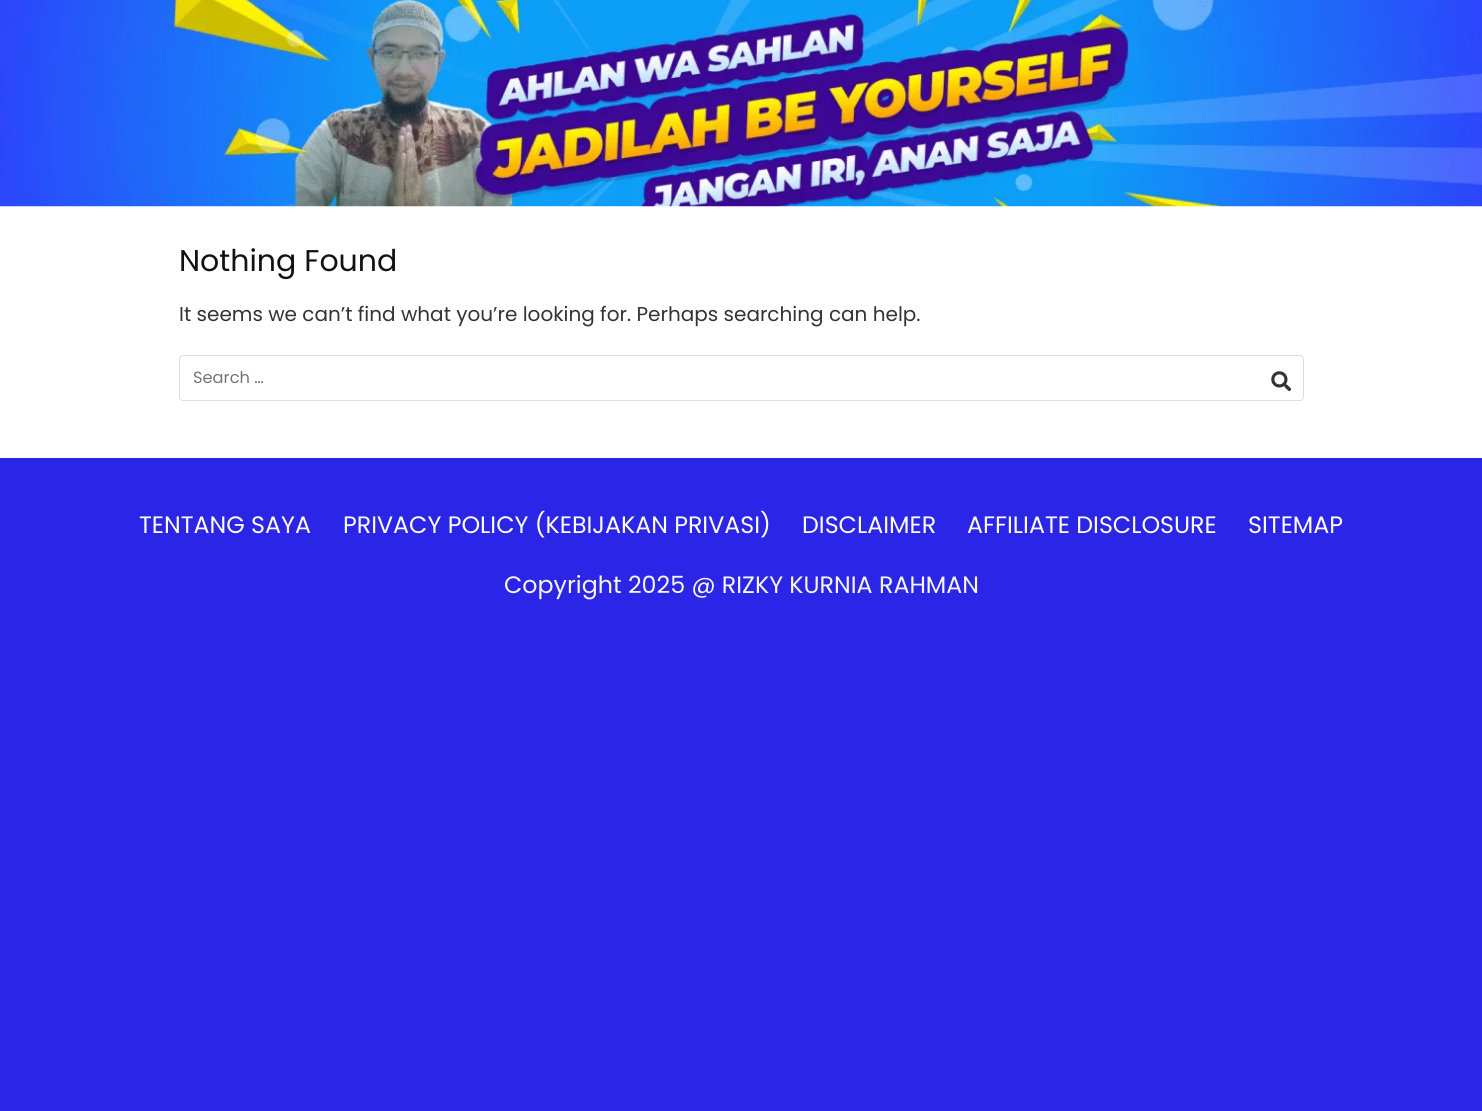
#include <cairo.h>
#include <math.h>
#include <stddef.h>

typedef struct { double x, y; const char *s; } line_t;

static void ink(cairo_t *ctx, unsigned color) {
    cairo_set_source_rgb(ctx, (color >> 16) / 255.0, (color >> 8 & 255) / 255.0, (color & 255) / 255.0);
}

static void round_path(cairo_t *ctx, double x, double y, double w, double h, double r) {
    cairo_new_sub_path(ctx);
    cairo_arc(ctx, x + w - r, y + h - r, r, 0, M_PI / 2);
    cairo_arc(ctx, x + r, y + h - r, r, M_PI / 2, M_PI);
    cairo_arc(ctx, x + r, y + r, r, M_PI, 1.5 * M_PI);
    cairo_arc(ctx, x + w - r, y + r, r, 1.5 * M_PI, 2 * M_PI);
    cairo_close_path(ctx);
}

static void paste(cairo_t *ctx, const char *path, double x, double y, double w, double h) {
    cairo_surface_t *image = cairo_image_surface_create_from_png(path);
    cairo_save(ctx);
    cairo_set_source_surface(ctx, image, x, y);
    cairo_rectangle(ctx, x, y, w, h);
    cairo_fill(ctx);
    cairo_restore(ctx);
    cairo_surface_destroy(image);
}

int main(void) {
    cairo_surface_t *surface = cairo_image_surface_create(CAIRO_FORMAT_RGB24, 1482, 1111);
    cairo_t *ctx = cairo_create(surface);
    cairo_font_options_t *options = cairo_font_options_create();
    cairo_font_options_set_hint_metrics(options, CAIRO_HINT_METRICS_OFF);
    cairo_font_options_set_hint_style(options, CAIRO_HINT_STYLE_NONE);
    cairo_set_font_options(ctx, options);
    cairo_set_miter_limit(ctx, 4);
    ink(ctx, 0x2B25E8);
    cairo_paint(ctx);
    ink(ctx, 0xFFFFFF);
    cairo_rectangle(ctx, 0, 206, 1482, 252);
    cairo_fill(ctx);
    paste(ctx, "media/1.png", 0, 0, 1482, 207);
    cairo_select_font_face(ctx, "Poppins", CAIRO_FONT_SLANT_NORMAL, CAIRO_FONT_WEIGHT_NORMAL);
    cairo_set_font_size(ctx, 30);
    ink(ctx, 0x111111);
    cairo_move_to(ctx, 179, 271);
    cairo_show_text(ctx, "Nothing Found");
    cairo_set_font_size(ctx, 20);
    ink(ctx, 0x333333);
    cairo_move_to(ctx, 179, 321);
    cairo_show_text(ctx, "It seems we can’t find what you’re looking for. Perhaps searching can help.");
    round_path(ctx, 179.5, 355.5, 1124, 45, 3.5);
    ink(ctx, 0xDDDDDD);
    cairo_set_line_width(ctx, 1);
    cairo_stroke(ctx);
    cairo_set_font_size(ctx, 16.25);
    ink(ctx, 0x757575);
    cairo_move_to(ctx, 193, 383);
    cairo_show_text(ctx, "Search …");
    paste(ctx, "media/2.png", 1271, 371, 20, 20);
    cairo_set_font_size(ctx, 23.75);
    ink(ctx, 0xFFFFFF);
    {
        static const line_t items[] = {
            {139, 533, "TENTANG SAYA"},
            {343, 533, "PRIVACY POLICY (KEBIJAKAN PRIVASI)"},
            {802, 533, "DISCLAIMER"},
            {967, 533, "AFFILIATE DISCLOSURE"},
            {1248, 533, "SITEMAP"},
        };
        for (size_t i = 0; i < sizeof items / sizeof *items; i++) {
            cairo_move_to(ctx, items[i].x, items[i].y);
            cairo_show_text(ctx, items[i].s);
        }
    }
    ink(ctx, 0xF7F7F7);
    cairo_move_to(ctx, 504, 593);
    cairo_show_text(ctx, "Copyright 2025 @ RIZKY KURNIA RAHMAN");
    cairo_surface_write_to_png(surface, "image.png");
    cairo_font_options_destroy(options);
    cairo_destroy(ctx);
    cairo_surface_destroy(surface);
    return 0;
}
